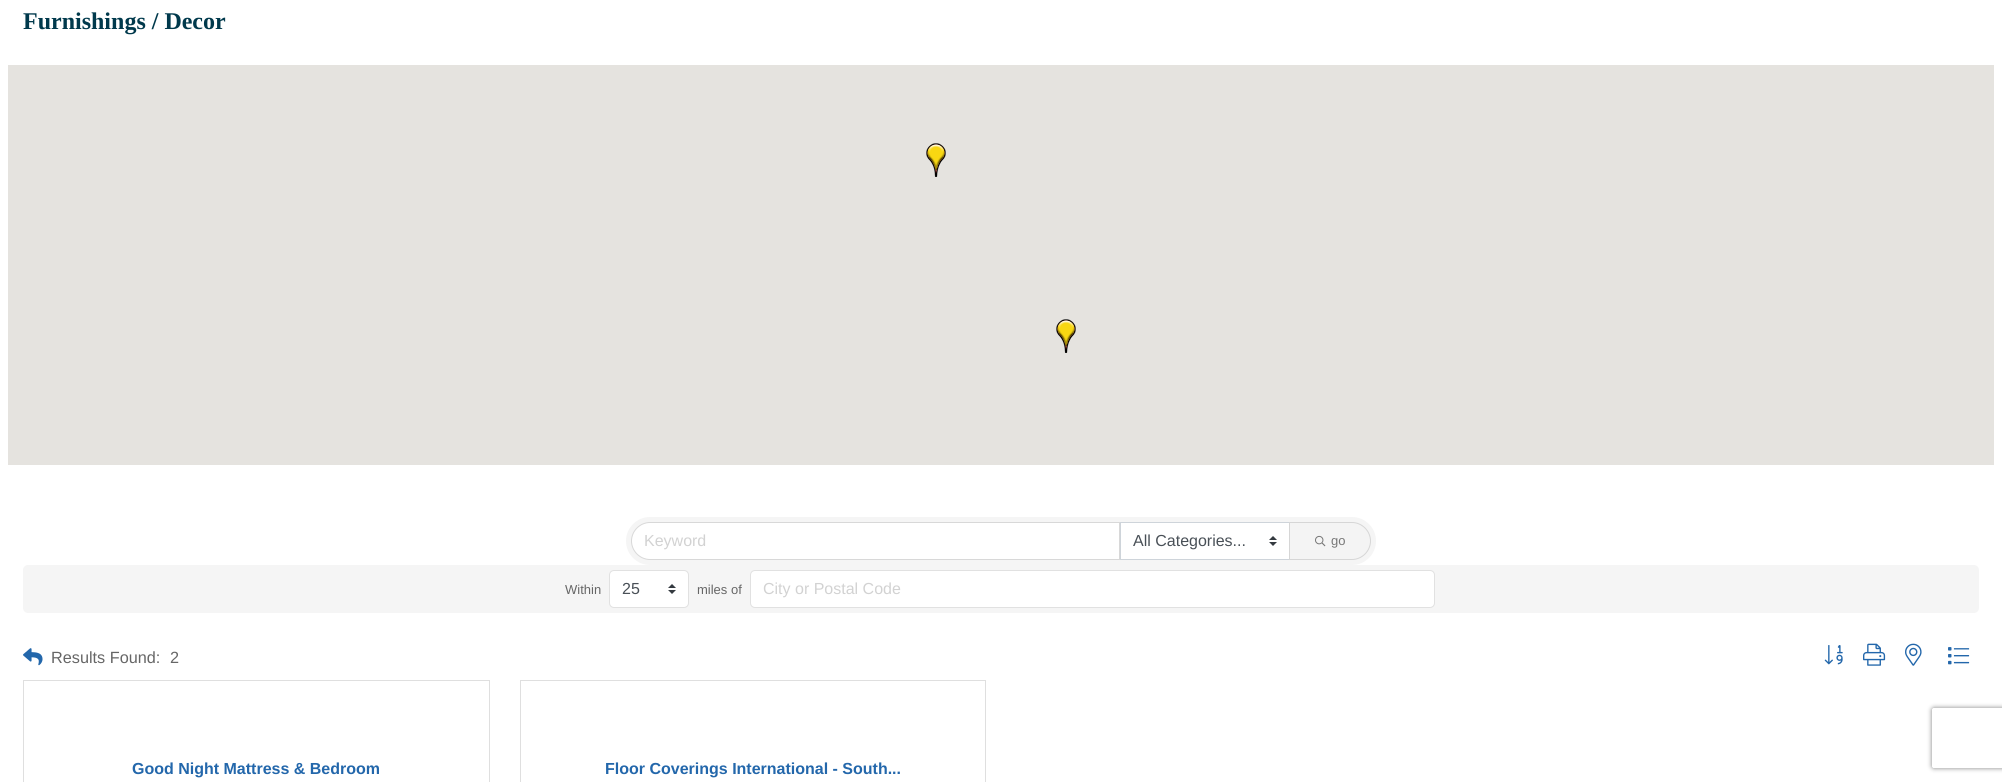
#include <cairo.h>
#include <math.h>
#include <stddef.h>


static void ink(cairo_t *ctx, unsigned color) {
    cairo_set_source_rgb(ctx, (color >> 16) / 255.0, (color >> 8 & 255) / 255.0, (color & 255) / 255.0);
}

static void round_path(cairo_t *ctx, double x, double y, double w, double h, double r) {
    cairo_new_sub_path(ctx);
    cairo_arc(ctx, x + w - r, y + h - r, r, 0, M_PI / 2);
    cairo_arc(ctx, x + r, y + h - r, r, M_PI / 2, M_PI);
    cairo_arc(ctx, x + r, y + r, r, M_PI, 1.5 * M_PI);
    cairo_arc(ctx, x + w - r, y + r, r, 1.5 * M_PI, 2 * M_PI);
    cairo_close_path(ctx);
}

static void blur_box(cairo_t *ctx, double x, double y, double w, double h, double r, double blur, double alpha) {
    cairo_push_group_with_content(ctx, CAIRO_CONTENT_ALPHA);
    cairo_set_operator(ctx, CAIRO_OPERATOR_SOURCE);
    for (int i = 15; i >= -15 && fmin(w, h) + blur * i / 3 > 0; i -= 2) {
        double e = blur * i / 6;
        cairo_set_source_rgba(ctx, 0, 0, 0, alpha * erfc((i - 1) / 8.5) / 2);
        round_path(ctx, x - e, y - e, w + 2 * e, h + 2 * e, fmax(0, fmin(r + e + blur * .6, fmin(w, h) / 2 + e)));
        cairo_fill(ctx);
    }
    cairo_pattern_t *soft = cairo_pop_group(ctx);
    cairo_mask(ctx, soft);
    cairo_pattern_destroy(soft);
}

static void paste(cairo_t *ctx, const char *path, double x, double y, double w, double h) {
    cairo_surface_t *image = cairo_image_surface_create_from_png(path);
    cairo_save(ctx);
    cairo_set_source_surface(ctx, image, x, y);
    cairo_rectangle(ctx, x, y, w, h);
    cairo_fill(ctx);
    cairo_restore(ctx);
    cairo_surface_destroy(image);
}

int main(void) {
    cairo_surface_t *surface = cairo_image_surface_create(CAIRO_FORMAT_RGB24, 2002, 782);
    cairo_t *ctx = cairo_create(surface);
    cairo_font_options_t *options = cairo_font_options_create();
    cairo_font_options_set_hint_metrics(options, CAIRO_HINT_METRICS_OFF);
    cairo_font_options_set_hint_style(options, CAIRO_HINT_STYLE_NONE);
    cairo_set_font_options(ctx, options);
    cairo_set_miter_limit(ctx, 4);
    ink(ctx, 0xFFFFFF);
    cairo_paint(ctx);
    cairo_select_font_face(ctx, "Liberation Serif", CAIRO_FONT_SLANT_NORMAL, CAIRO_FONT_WEIGHT_BOLD);
    cairo_set_font_size(ctx, 24);
    ink(ctx, 0x00394C);
    cairo_move_to(ctx, 23, 29);
    cairo_show_text(ctx, "Furnishings / Decor");
    ink(ctx, 0xE5E3DF);
    cairo_rectangle(ctx, 8, 65, 1986, 400);
    cairo_fill(ctx);
    paste(ctx, "media/1.png", 926, 143, 20, 34);
    paste(ctx, "media/1.png", 1056, 319, 20, 34);
    ink(ctx, 0xF5F5F5);
    round_path(ctx, 626, 517, 750, 48, 24);
    cairo_fill(ctx);
    ink(ctx, 0xFFFFFF);
    cairo_new_path(ctx);
    cairo_move_to(ctx, 650, 523);
    cairo_line_to(ctx, 1119, 523);
    cairo_line_to(ctx, 1119, 559);
    cairo_line_to(ctx, 650, 559);
    cairo_curve_to(ctx, 640, 559, 632, 551, 632, 541);
    cairo_curve_to(ctx, 632, 531, 640, 523, 650, 523);
    cairo_close_path(ctx);
    cairo_fill(ctx);
    cairo_new_path(ctx);
    cairo_move_to(ctx, 650, 522.5);
    cairo_line_to(ctx, 1119.5, 522.5);
    cairo_line_to(ctx, 1119.5, 559.5);
    cairo_line_to(ctx, 650, 559.5);
    cairo_curve_to(ctx, 640, 559.5, 631.5, 551, 631.5, 541);
    cairo_curve_to(ctx, 631.5, 531, 640, 522.5, 650, 522.5);
    cairo_close_path(ctx);
    cairo_set_source_rgba(ctx, 0, 0, 0, 0.12);
    cairo_set_line_width(ctx, 1);
    cairo_stroke(ctx);
    cairo_select_font_face(ctx, "Liberation Sans", CAIRO_FONT_SLANT_NORMAL, CAIRO_FONT_WEIGHT_NORMAL);
    cairo_set_font_size(ctx, 16);
    ink(ctx, 0xD2D2D2);
    cairo_move_to(ctx, 644, 546);
    cairo_show_text(ctx, "Keyword");
    ink(ctx, 0xFFFFFF);
    cairo_rectangle(ctx, 1121, 523, 168, 36);
    cairo_fill(ctx);
    paste(ctx, "media/2.png", 1269, 536, 8, 10);
    cairo_rectangle(ctx, 1120.5, 522.5, 169, 37);
    ink(ctx, 0xCED4DA);
    cairo_stroke(ctx);
    ink(ctx, 0x495057);
    cairo_move_to(ctx, 1133, 546);
    cairo_show_text(ctx, "All Categories...");
    ink(ctx, 0xF4F4F4);
    cairo_new_path(ctx);
    cairo_move_to(ctx, 1289.5, 522.5);
    cairo_line_to(ctx, 1352, 522.5);
    cairo_curve_to(ctx, 1362, 522.5, 1370.5, 531, 1370.5, 541);
    cairo_curve_to(ctx, 1370.5, 551, 1362, 559.5, 1352, 559.5);
    cairo_line_to(ctx, 1289.5, 559.5);
    cairo_close_path(ctx);
    cairo_fill_preserve(ctx);
    ink(ctx, 0xD6D6D6);
    cairo_stroke(ctx);
    paste(ctx, "media/3.png", 1315, 535, 11, 12);
    cairo_set_font_size(ctx, 13);
    ink(ctx, 0x777777);
    cairo_move_to(ctx, 1331, 545);
    cairo_show_text(ctx, "go");
    ink(ctx, 0xF5F5F5);
    round_path(ctx, 23, 565, 1956, 48, 5);
    cairo_fill(ctx);
    ink(ctx, 0x666666);
    cairo_move_to(ctx, 565, 594);
    cairo_show_text(ctx, "Within");
    ink(ctx, 0xFFFFFF);
    round_path(ctx, 609, 570, 80, 38, 5);
    cairo_fill(ctx);
    paste(ctx, "media/2.png", 668, 584, 8, 10);
    round_path(ctx, 609.5, 570.5, 79, 37, 4.5);
    cairo_set_source_rgba(ctx, 0, 0, 0, 0.12);
    cairo_stroke(ctx);
    cairo_set_font_size(ctx, 16);
    ink(ctx, 0x495057);
    cairo_move_to(ctx, 622, 594);
    cairo_show_text(ctx, "25");
    cairo_set_font_size(ctx, 13);
    ink(ctx, 0x666666);
    cairo_move_to(ctx, 697, 594);
    cairo_show_text(ctx, "miles of");
    ink(ctx, 0xFFFFFF);
    round_path(ctx, 750, 570, 685, 38, 5);
    cairo_fill(ctx);
    round_path(ctx, 750.5, 570.5, 684, 37, 4.5);
    cairo_set_source_rgba(ctx, 0, 0, 0, 0.12);
    cairo_stroke(ctx);
    cairo_set_font_size(ctx, 16);
    ink(ctx, 0xD2D2D2);
    cairo_move_to(ctx, 763, 594);
    cairo_show_text(ctx, "City or Postal Code");
    paste(ctx, "media/4.png", 23, 648, 20, 18);
    cairo_set_font_size(ctx, 16.25);
    ink(ctx, 0x666666);
    cairo_move_to(ctx, 51, 663);
    cairo_show_text(ctx, "Results Found:");
    cairo_move_to(ctx, 170, 663);
    cairo_show_text(ctx, "2");
    paste(ctx, "media/5.png", 1824, 645, 19, 20);
    paste(ctx, "media/6.png", 1863, 643, 23, 23);
    paste(ctx, "media/7.png", 1905, 643, 17, 23);
    paste(ctx, "media/8.png", 1948, 647, 22, 18);
    cairo_rectangle(ctx, 23.5, 680.5, 466, 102);
    ink(ctx, 0xDFDFDF);
    cairo_stroke(ctx);
    cairo_select_font_face(ctx, "Liberation Sans", CAIRO_FONT_SLANT_NORMAL, CAIRO_FONT_WEIGHT_BOLD);
    cairo_set_font_size(ctx, 16);
    ink(ctx, 0x2367AB);
    cairo_move_to(ctx, 132, 774);
    cairo_show_text(ctx, "Good Night Mattress & Bedroom");
    cairo_rectangle(ctx, 520.5, 680.5, 465, 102);
    ink(ctx, 0xDFDFDF);
    cairo_stroke(ctx);
    ink(ctx, 0x2367AB);
    cairo_move_to(ctx, 605, 774);
    cairo_show_text(ctx, "Floor Coverings International - South...");
    cairo_save(ctx);
    cairo_set_fill_rule(ctx, CAIRO_FILL_RULE_EVEN_ODD);
    cairo_new_path(ctx);
    cairo_move_to(ctx, 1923, 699);
    cairo_line_to(ctx, 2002, 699);
    cairo_line_to(ctx, 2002, 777);
    cairo_line_to(ctx, 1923, 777);
    cairo_close_path(ctx);
    cairo_move_to(ctx, 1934, 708);
    cairo_line_to(ctx, 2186, 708);
    cairo_curve_to(ctx, 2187, 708, 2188, 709, 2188, 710);
    cairo_line_to(ctx, 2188, 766);
    cairo_curve_to(ctx, 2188, 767, 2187, 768, 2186, 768);
    cairo_line_to(ctx, 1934, 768);
    cairo_curve_to(ctx, 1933, 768, 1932, 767, 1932, 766);
    cairo_line_to(ctx, 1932, 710);
    cairo_curve_to(ctx, 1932, 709, 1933, 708, 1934, 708);
    cairo_close_path(ctx);
    cairo_clip(ctx);
    ink(ctx, 0x808080);
    blur_box(ctx, 1932, 708, 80, 60, 2, 2.5, 1);
    cairo_restore(ctx);
    cairo_surface_write_to_png(surface, "image.png");
    cairo_font_options_destroy(options);
    cairo_destroy(ctx);
    cairo_surface_destroy(surface);
    return 0;
}
